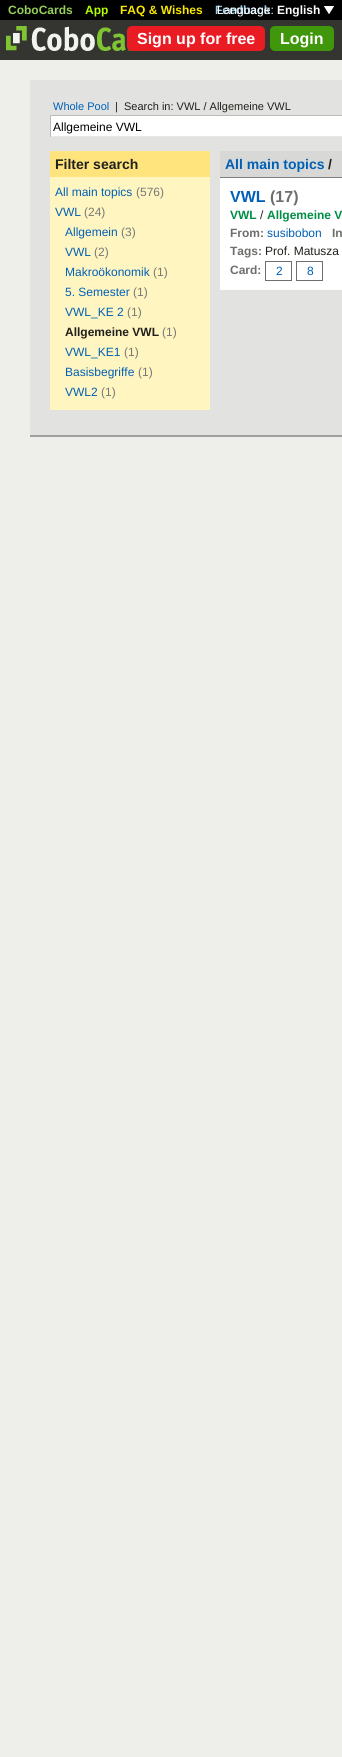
#include <cairo.h>
#include <math.h>
#include <stddef.h>

typedef struct { double x, y, w, h; unsigned color; } box_t;

static void ink(cairo_t *ctx, unsigned color) {
    cairo_set_source_rgb(ctx, (color >> 16) / 255.0, (color >> 8 & 255) / 255.0, (color & 255) / 255.0);
}

static void round_path(cairo_t *ctx, double x, double y, double w, double h, double r) {
    cairo_new_sub_path(ctx);
    cairo_arc(ctx, x + w - r, y + h - r, r, 0, M_PI / 2);
    cairo_arc(ctx, x + r, y + h - r, r, M_PI / 2, M_PI);
    cairo_arc(ctx, x + r, y + r, r, M_PI, 1.5 * M_PI);
    cairo_arc(ctx, x + w - r, y + r, r, 1.5 * M_PI, 2 * M_PI);
    cairo_close_path(ctx);
}

static void paste(cairo_t *ctx, const char *path, double x, double y, double w, double h) {
    cairo_surface_t *image = cairo_image_surface_create_from_png(path);
    cairo_save(ctx);
    cairo_set_source_surface(ctx, image, x, y);
    cairo_rectangle(ctx, x, y, w, h);
    cairo_fill(ctx);
    cairo_restore(ctx);
    cairo_surface_destroy(image);
}

int main(void) {
    cairo_surface_t *surface = cairo_image_surface_create(CAIRO_FORMAT_RGB24, 342, 1757);
    cairo_t *ctx = cairo_create(surface);
    cairo_font_options_t *options = cairo_font_options_create();
    cairo_font_options_set_hint_metrics(options, CAIRO_HINT_METRICS_OFF);
    cairo_font_options_set_hint_style(options, CAIRO_HINT_STYLE_NONE);
    cairo_set_font_options(ctx, options);
    cairo_set_miter_limit(ctx, 4);
    ink(ctx, 0xEEEFEB);
    cairo_paint(ctx);
    ink(ctx, 0x343530);
    cairo_rectangle(ctx, 0, 20, 342, 40);
    cairo_fill(ctx);
    ink(ctx, 0x000000);
    cairo_rectangle(ctx, 0, 0, 342, 20);
    cairo_fill(ctx);
    cairo_select_font_face(ctx, "Liberation Sans", CAIRO_FONT_SLANT_NORMAL, CAIRO_FONT_WEIGHT_BOLD);
    cairo_set_font_size(ctx, 12);
    ink(ctx, 0x97CF58);
    cairo_move_to(ctx, 8, 14);
    cairo_show_text(ctx, "CoboCards");
    ink(ctx, 0xB4FF00);
    cairo_move_to(ctx, 85, 14);
    cairo_show_text(ctx, "App");
    ink(ctx, 0xF9E800);
    cairo_move_to(ctx, 120, 14);
    cairo_show_text(ctx, "FAQ & Wishes");
    ink(ctx, 0x9FCFE7);
    cairo_move_to(ctx, 215, 14);
    cairo_show_text(ctx, "Feedback");
    cairo_select_font_face(ctx, "Liberation Sans", CAIRO_FONT_SLANT_NORMAL, CAIRO_FONT_WEIGHT_NORMAL);
    ink(ctx, 0xFFFFFF);
    cairo_move_to(ctx, 217, 14);
    cairo_show_text(ctx, "Language:");
    cairo_select_font_face(ctx, "Liberation Sans", CAIRO_FONT_SLANT_NORMAL, CAIRO_FONT_WEIGHT_BOLD);
    cairo_move_to(ctx, 277, 14);
    cairo_show_text(ctx, "English");
    paste(ctx, "media/1.png", 324, 6, 10, 8);
    paste(ctx, "media/2.png", 6, 26, 126, 25);
    ink(ctx, 0xE91C24);
    round_path(ctx, 127, 26, 138, 25, 5);
    cairo_fill(ctx);
    cairo_set_font_size(ctx, 16);
    ink(ctx, 0xFFFFFF);
    cairo_move_to(ctx, 137, 44);
    cairo_show_text(ctx, "Sign up for free");
    ink(ctx, 0x40970B);
    round_path(ctx, 270, 26, 64, 25, 5);
    cairo_fill(ctx);
    ink(ctx, 0xFFFFFF);
    cairo_move_to(ctx, 280, 44);
    cairo_show_text(ctx, "Login");
    ink(ctx, 0xE2E3E0);
    cairo_rectangle(ctx, 30, 80, 312, 355);
    cairo_fill(ctx);
    ink(ctx, 0x9F9F9F);
    cairo_rectangle(ctx, 30, 435, 312, 2);
    cairo_fill(ctx);
    cairo_select_font_face(ctx, "Liberation Sans", CAIRO_FONT_SLANT_NORMAL, CAIRO_FONT_WEIGHT_NORMAL);
    cairo_set_font_size(ctx, 11);
    ink(ctx, 0x0060B6);
    cairo_move_to(ctx, 53, 110);
    cairo_show_text(ctx, "Whole Pool");
    ink(ctx, 0x21201C);
    cairo_move_to(ctx, 115, 110);
    cairo_show_text(ctx, "|  Search in: VWL / Allgemeine VWL");
    {
        static const box_t items[] = {
            {51, 116, 291, 20, 0xFFFFFF},
            {50, 115, 292, 1, 0xBBBBBA},
            {50, 136, 292, 1, 0xE8E9E7},
            {50, 115, 1, 22, 0xBBBBBA},
        };
        for (size_t i = 0; i < sizeof items / sizeof *items; i++) {
            ink(ctx, items[i].color);
            cairo_rectangle(ctx, items[i].x, items[i].y, items[i].w, items[i].h);
            cairo_fill(ctx);
        }
    }
    cairo_set_font_size(ctx, 12);
    ink(ctx, 0x000000);
    cairo_move_to(ctx, 53, 131);
    cairo_show_text(ctx, "Allgemeine VWL");
    ink(ctx, 0xFFE47E);
    cairo_rectangle(ctx, 50, 151, 160, 26);
    cairo_fill(ctx);
    cairo_select_font_face(ctx, "Liberation Sans", CAIRO_FONT_SLANT_NORMAL, CAIRO_FONT_WEIGHT_BOLD);
    cairo_set_font_size(ctx, 14);
    ink(ctx, 0x21201C);
    cairo_move_to(ctx, 55, 169);
    cairo_show_text(ctx, "Filter search");
    ink(ctx, 0xFFF5C1);
    cairo_rectangle(ctx, 50, 177, 160, 233);
    cairo_fill(ctx);
    cairo_select_font_face(ctx, "Liberation Sans", CAIRO_FONT_SLANT_NORMAL, CAIRO_FONT_WEIGHT_NORMAL);
    cairo_set_font_size(ctx, 12);
    ink(ctx, 0x0060B6);
    cairo_move_to(ctx, 55, 196);
    cairo_show_text(ctx, "All main topics");
    ink(ctx, 0x777876);
    cairo_move_to(ctx, 136, 196);
    cairo_show_text(ctx, "(576)");
    ink(ctx, 0x0060B6);
    cairo_move_to(ctx, 55, 216);
    cairo_show_text(ctx, "VWL");
    ink(ctx, 0x777876);
    cairo_move_to(ctx, 84, 216);
    cairo_show_text(ctx, "(24)");
    ink(ctx, 0x0060B6);
    cairo_move_to(ctx, 65, 236);
    cairo_show_text(ctx, "Allgemein");
    ink(ctx, 0x777876);
    cairo_move_to(ctx, 121, 236);
    cairo_show_text(ctx, "(3)");
    ink(ctx, 0x0060B6);
    cairo_move_to(ctx, 65, 256);
    cairo_show_text(ctx, "VWL");
    ink(ctx, 0x777876);
    cairo_move_to(ctx, 94, 256);
    cairo_show_text(ctx, "(2)");
    ink(ctx, 0x0060B6);
    cairo_move_to(ctx, 65, 276);
    cairo_show_text(ctx, "Makroökonomik");
    ink(ctx, 0x777876);
    cairo_move_to(ctx, 153, 276);
    cairo_show_text(ctx, "(1)");
    ink(ctx, 0x0060B6);
    cairo_move_to(ctx, 65, 296);
    cairo_show_text(ctx, "5. Semester");
    ink(ctx, 0x777876);
    cairo_move_to(ctx, 133, 296);
    cairo_show_text(ctx, "(1)");
    ink(ctx, 0x0060B6);
    cairo_move_to(ctx, 65, 316);
    cairo_show_text(ctx, "VWL_KE 2");
    ink(ctx, 0x777876);
    cairo_move_to(ctx, 127, 316);
    cairo_show_text(ctx, "(1)");
    cairo_select_font_face(ctx, "Liberation Sans", CAIRO_FONT_SLANT_NORMAL, CAIRO_FONT_WEIGHT_BOLD);
    ink(ctx, 0x21201C);
    cairo_move_to(ctx, 65, 336);
    cairo_show_text(ctx, "Allgemeine VWL");
    cairo_select_font_face(ctx, "Liberation Sans", CAIRO_FONT_SLANT_NORMAL, CAIRO_FONT_WEIGHT_NORMAL);
    ink(ctx, 0x777876);
    cairo_move_to(ctx, 162, 336);
    cairo_show_text(ctx, "(1)");
    ink(ctx, 0x0060B6);
    cairo_move_to(ctx, 65, 356);
    cairo_show_text(ctx, "VWL_KE1");
    ink(ctx, 0x777876);
    cairo_move_to(ctx, 124, 356);
    cairo_show_text(ctx, "(1)");
    ink(ctx, 0x0060B6);
    cairo_move_to(ctx, 65, 376);
    cairo_show_text(ctx, "Basisbegriffe");
    ink(ctx, 0x777876);
    cairo_move_to(ctx, 138, 376);
    cairo_show_text(ctx, "(1)");
    ink(ctx, 0x0060B6);
    cairo_move_to(ctx, 65, 396);
    cairo_show_text(ctx, "VWL2");
    ink(ctx, 0x777876);
    cairo_move_to(ctx, 101, 396);
    cairo_show_text(ctx, "(1)");
    ink(ctx, 0xD8D9D7);
    cairo_rectangle(ctx, 220, 151, 122, 26);
    cairo_fill(ctx);
    ink(ctx, 0x80807F);
    cairo_rectangle(ctx, 220, 177, 122, 1);
    cairo_fill(ctx);
    cairo_select_font_face(ctx, "Liberation Sans", CAIRO_FONT_SLANT_NORMAL, CAIRO_FONT_WEIGHT_BOLD);
    cairo_set_font_size(ctx, 14);
    ink(ctx, 0x0060B6);
    cairo_move_to(ctx, 225, 169);
    cairo_show_text(ctx, "All main topics");
    ink(ctx, 0x21201C);
    cairo_move_to(ctx, 328, 169);
    cairo_show_text(ctx, "/");
    ink(ctx, 0xFFFFFF);
    cairo_rectangle(ctx, 220, 178, 122, 112);
    cairo_fill(ctx);
    cairo_set_font_size(ctx, 16);
    ink(ctx, 0x0060B6);
    cairo_move_to(ctx, 230, 202);
    cairo_show_text(ctx, "VWL");
    ink(ctx, 0x6D6F6C);
    cairo_move_to(ctx, 270, 202);
    cairo_show_text(ctx, "(17)");
    cairo_set_font_size(ctx, 12);
    ink(ctx, 0x008E45);
    cairo_move_to(ctx, 230, 219);
    cairo_show_text(ctx, "VWL");
    cairo_select_font_face(ctx, "Liberation Sans", CAIRO_FONT_SLANT_NORMAL, CAIRO_FONT_WEIGHT_NORMAL);
    ink(ctx, 0x21201C);
    cairo_move_to(ctx, 260, 219);
    cairo_show_text(ctx, "/");
    cairo_select_font_face(ctx, "Liberation Sans", CAIRO_FONT_SLANT_NORMAL, CAIRO_FONT_WEIGHT_BOLD);
    ink(ctx, 0x008E45);
    cairo_move_to(ctx, 267, 219);
    cairo_show_text(ctx, "Allgemeine V");
    ink(ctx, 0x6D6F6C);
    cairo_move_to(ctx, 230, 237);
    cairo_show_text(ctx, "From:");
    cairo_select_font_face(ctx, "Liberation Sans", CAIRO_FONT_SLANT_NORMAL, CAIRO_FONT_WEIGHT_NORMAL);
    ink(ctx, 0x0060B6);
    cairo_move_to(ctx, 267, 237);
    cairo_show_text(ctx, "susibobon");
    cairo_select_font_face(ctx, "Liberation Sans", CAIRO_FONT_SLANT_NORMAL, CAIRO_FONT_WEIGHT_BOLD);
    ink(ctx, 0x6D6F6C);
    cairo_move_to(ctx, 332, 237);
    cairo_show_text(ctx, "In");
    cairo_move_to(ctx, 230, 255);
    cairo_show_text(ctx, "Tags:");
    cairo_select_font_face(ctx, "Liberation Sans", CAIRO_FONT_SLANT_NORMAL, CAIRO_FONT_WEIGHT_NORMAL);
    ink(ctx, 0x21201C);
    cairo_move_to(ctx, 265, 255);
    cairo_show_text(ctx, "Prof. Matusza");
    cairo_select_font_face(ctx, "Liberation Sans", CAIRO_FONT_SLANT_NORMAL, CAIRO_FONT_WEIGHT_BOLD);
    ink(ctx, 0x6D6F6C);
    cairo_move_to(ctx, 230, 274);
    cairo_show_text(ctx, "Card:");
    cairo_rectangle(ctx, 265.5, 261.5, 26, 19);
    cairo_set_line_width(ctx, 1);
    cairo_stroke(ctx);
    cairo_select_font_face(ctx, "Liberation Sans", CAIRO_FONT_SLANT_NORMAL, CAIRO_FONT_WEIGHT_NORMAL);
    ink(ctx, 0x0060B6);
    cairo_move_to(ctx, 276, 275);
    cairo_show_text(ctx, "2");
    cairo_rectangle(ctx, 296.5, 261.5, 26, 19);
    ink(ctx, 0x6D6F6C);
    cairo_stroke(ctx);
    ink(ctx, 0x0060B6);
    cairo_move_to(ctx, 307, 275);
    cairo_show_text(ctx, "8");
    cairo_surface_write_to_png(surface, "image.png");
    cairo_font_options_destroy(options);
    cairo_destroy(ctx);
    cairo_surface_destroy(surface);
    return 0;
}
